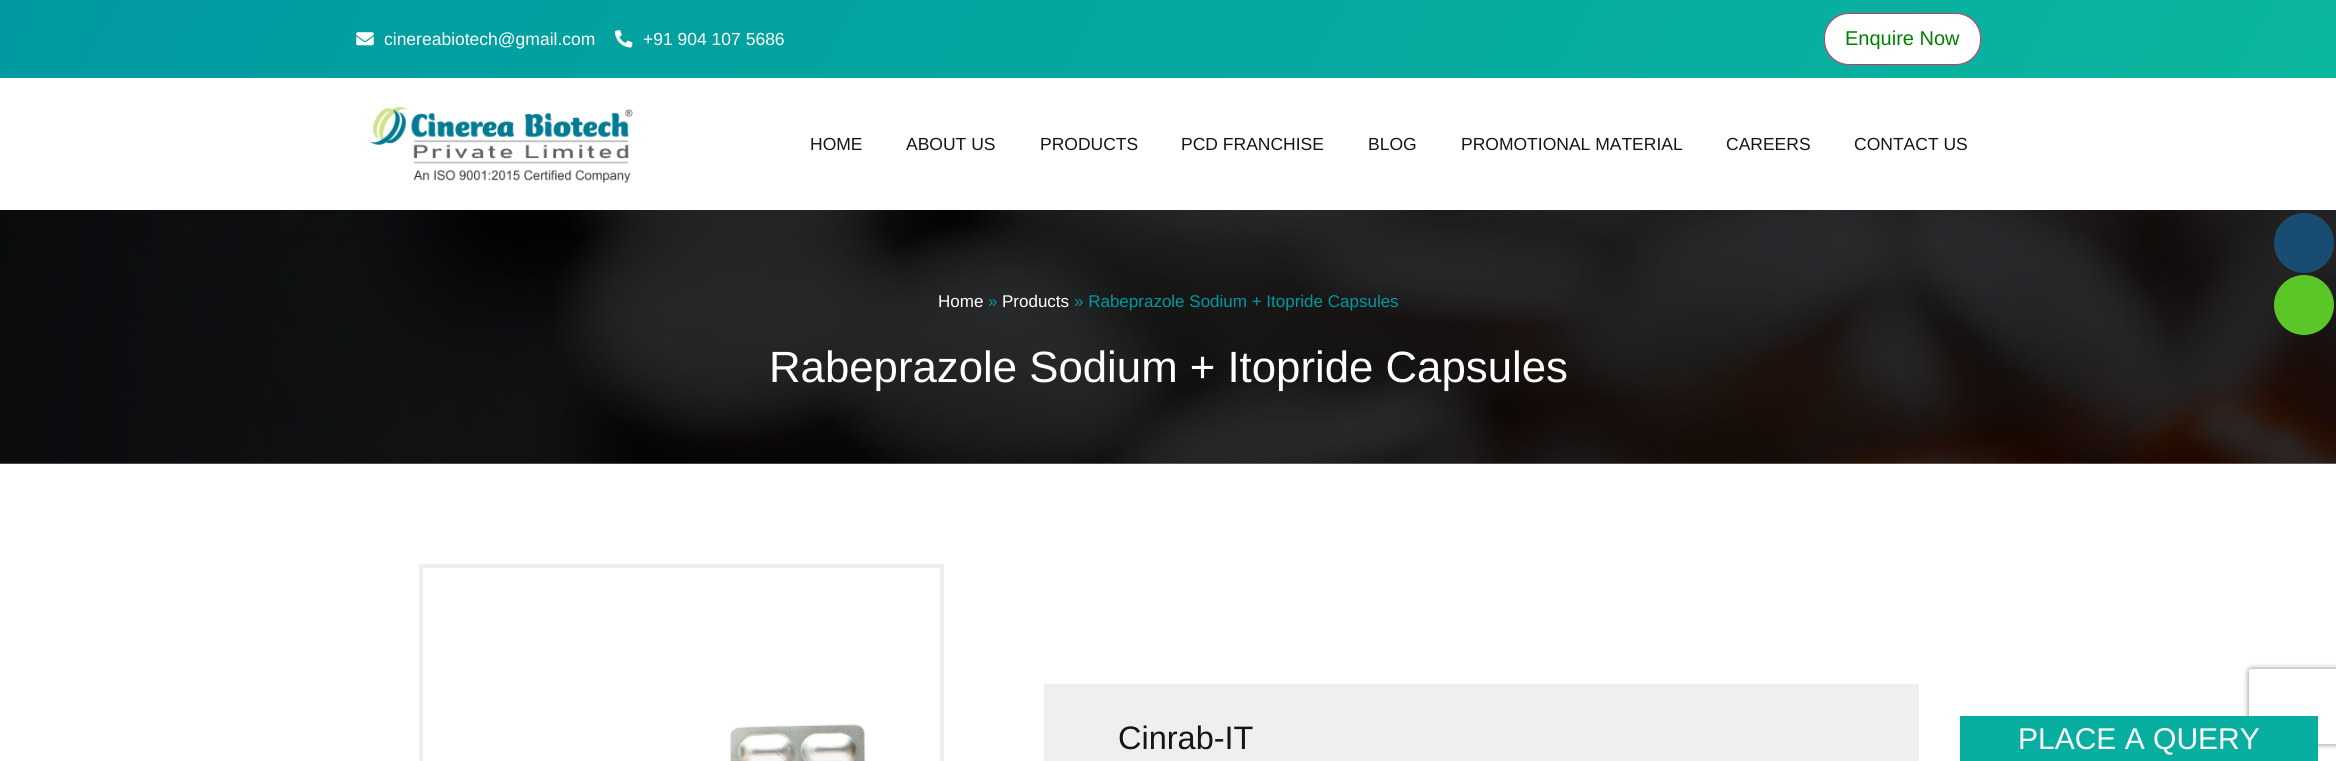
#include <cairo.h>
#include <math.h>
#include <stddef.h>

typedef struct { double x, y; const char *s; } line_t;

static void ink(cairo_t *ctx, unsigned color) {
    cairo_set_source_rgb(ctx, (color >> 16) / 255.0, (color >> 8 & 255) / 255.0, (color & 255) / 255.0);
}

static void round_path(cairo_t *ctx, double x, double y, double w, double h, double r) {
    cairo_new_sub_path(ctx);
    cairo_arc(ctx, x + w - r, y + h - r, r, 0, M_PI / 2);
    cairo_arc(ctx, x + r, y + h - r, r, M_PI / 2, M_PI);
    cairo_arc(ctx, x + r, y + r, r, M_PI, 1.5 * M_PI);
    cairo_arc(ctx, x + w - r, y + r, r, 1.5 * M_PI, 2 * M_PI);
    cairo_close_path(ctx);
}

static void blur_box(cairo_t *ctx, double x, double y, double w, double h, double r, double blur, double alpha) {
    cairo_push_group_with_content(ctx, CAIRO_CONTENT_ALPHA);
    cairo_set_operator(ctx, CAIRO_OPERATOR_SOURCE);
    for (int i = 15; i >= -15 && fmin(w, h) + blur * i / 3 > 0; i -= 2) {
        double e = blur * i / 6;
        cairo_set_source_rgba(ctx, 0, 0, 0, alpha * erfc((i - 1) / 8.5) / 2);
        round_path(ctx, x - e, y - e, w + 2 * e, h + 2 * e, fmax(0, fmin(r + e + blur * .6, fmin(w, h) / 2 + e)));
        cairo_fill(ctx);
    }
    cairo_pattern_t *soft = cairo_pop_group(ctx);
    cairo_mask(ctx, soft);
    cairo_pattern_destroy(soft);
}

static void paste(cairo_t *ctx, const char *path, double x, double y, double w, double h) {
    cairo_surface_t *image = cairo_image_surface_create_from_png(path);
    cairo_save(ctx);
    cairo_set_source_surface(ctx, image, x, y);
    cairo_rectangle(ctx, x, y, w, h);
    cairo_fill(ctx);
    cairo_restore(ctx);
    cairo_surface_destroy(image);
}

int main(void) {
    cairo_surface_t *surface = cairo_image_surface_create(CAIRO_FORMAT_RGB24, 2336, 761);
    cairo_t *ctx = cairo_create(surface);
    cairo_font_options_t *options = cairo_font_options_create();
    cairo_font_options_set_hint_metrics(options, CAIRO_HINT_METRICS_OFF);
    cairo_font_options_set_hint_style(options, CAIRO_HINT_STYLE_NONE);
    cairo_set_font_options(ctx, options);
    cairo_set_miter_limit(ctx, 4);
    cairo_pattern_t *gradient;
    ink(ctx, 0xFFFFFF);
    cairo_paint(ctx);
    gradient = cairo_pattern_create_linear(258, -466, 2078, 543);
    cairo_pattern_add_color_stop_rgba(gradient, 0, 0, 0.6, 0.631, 1);
    cairo_pattern_add_color_stop_rgba(gradient, 1, 0.043, 0.714, 0.624, 1);
    cairo_set_source(ctx, gradient);
    cairo_pattern_destroy(gradient);
    cairo_rectangle(ctx, 0, 0, 2336, 78);
    cairo_fill(ctx);
    paste(ctx, "media/1.png", 356, 32, 18, 14);
    cairo_select_font_face(ctx, "Liberation Sans", CAIRO_FONT_SLANT_NORMAL, CAIRO_FONT_WEIGHT_NORMAL);
    cairo_set_font_size(ctx, 17.5);
    ink(ctx, 0xFFFFFF);
    cairo_move_to(ctx, 384, 45);
    cairo_show_text(ctx, "cinereabiotech@gmail.com");
    paste(ctx, "media/2.png", 615, 30, 18, 18);
    cairo_move_to(ctx, 643, 45);
    cairo_show_text(ctx, "+91 904 107 5686");
    round_path(ctx, 1824.5, 13.5, 156, 51, 24.5);
    cairo_fill_preserve(ctx);
    ink(ctx, 0xCC3366);
    cairo_set_line_width(ctx, 1);
    cairo_stroke(ctx);
    cairo_set_font_size(ctx, 20);
    ink(ctx, 0x008000);
    cairo_move_to(ctx, 1845, 45);
    cairo_show_text(ctx, "Enquire Now");
    paste(ctx, "media/3.png", 369, 106, 264, 78);
    cairo_set_font_size(ctx, 17.5);
    ink(ctx, 0x151515);
    {
        static const line_t items[] = {
            {810, 150, "HOME"},
            {906, 150, "ABOUT US"},
            {1040, 150, "PRODUCTS"},
            {1181, 150, "PCD FRANCHISE"},
            {1368, 150, "BLOG"},
            {1461, 150, "PROMOTIONAL MATERIAL"},
            {1726, 150, "CAREERS"},
            {1854, 150, "CONTACT US"},
        };
        for (size_t i = 0; i < sizeof items / sizeof *items; i++) {
            cairo_move_to(ctx, items[i].x, items[i].y);
            cairo_show_text(ctx, items[i].s);
        }
    }
    paste(ctx, "media/4.png", 0, 210, 2336, 254);
    ink(ctx, 0x184C72);
    cairo_arc(ctx, 2304, 243, 30, 0, 2 * M_PI);
    cairo_fill(ctx);
    ink(ctx, 0x5AC627);
    cairo_arc(ctx, 2304, 305, 30, 0, 2 * M_PI);
    cairo_fill(ctx);
    cairo_set_font_size(ctx, 17);
    ink(ctx, 0xFFFFFF);
    cairo_move_to(ctx, 938, 307);
    cairo_show_text(ctx, "Home");
    ink(ctx, 0x0099A1);
    cairo_move_to(ctx, 988, 307);
    cairo_show_text(ctx, "»");
    ink(ctx, 0xFFFFFF);
    cairo_move_to(ctx, 1002, 307);
    cairo_show_text(ctx, "Products");
    ink(ctx, 0x0099A1);
    cairo_move_to(ctx, 1074, 307);
    cairo_show_text(ctx, "» Rabeprazole Sodium + Itopride Capsules");
    cairo_set_font_size(ctx, 43.75);
    ink(ctx, 0xFFFFFF);
    cairo_move_to(ctx, 769, 382);
    cairo_show_text(ctx, "Rabeprazole Sodium + Itopride Capsules");
    cairo_rectangle(ctx, 421, 566, 521, 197);
    ink(ctx, 0xF0EFED);
    cairo_set_line_width(ctx, 4);
    cairo_stroke(ctx);
    paste(ctx, "media/5.png", 729, 723, 138, 38);
    cairo_rectangle(ctx, 1044, 684, 875, 77);
    cairo_fill(ctx);
    cairo_set_font_size(ctx, 32.5);
    ink(ctx, 0x151515);
    cairo_move_to(ctx, 1118, 749);
    cairo_show_text(ctx, "Cinrab-IT");
    cairo_save(ctx);
    cairo_set_fill_rule(ctx, CAIRO_FILL_RULE_EVEN_ODD);
    cairo_new_path(ctx);
    cairo_move_to(ctx, 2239, 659);
    cairo_line_to(ctx, 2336, 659);
    cairo_line_to(ctx, 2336, 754);
    cairo_line_to(ctx, 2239, 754);
    cairo_close_path(ctx);
    cairo_move_to(ctx, 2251.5, 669);
    cairo_line_to(ctx, 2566.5, 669);
    cairo_curve_to(ctx, 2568, 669, 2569, 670, 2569, 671.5);
    cairo_line_to(ctx, 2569, 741.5);
    cairo_curve_to(ctx, 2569, 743, 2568, 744, 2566.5, 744);
    cairo_line_to(ctx, 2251.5, 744);
    cairo_curve_to(ctx, 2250, 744, 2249, 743, 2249, 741.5);
    cairo_line_to(ctx, 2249, 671.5);
    cairo_curve_to(ctx, 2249, 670, 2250, 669, 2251.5, 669);
    cairo_close_path(ctx);
    cairo_clip(ctx);
    ink(ctx, 0x808080);
    blur_box(ctx, 2249, 669, 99, 75, 2.5, 3, 1);
    cairo_restore(ctx);
    ink(ctx, 0x08AEA0);
    cairo_rectangle(ctx, 1960, 716, 358, 45);
    cairo_fill(ctx);
    cairo_set_font_size(ctx, 30);
    ink(ctx, 0xFFFFFF);
    cairo_move_to(ctx, 2018, 749);
    cairo_show_text(ctx, "PLACE A QUERY");
    cairo_surface_write_to_png(surface, "image.png");
    cairo_font_options_destroy(options);
    cairo_destroy(ctx);
    cairo_surface_destroy(surface);
    return 0;
}
